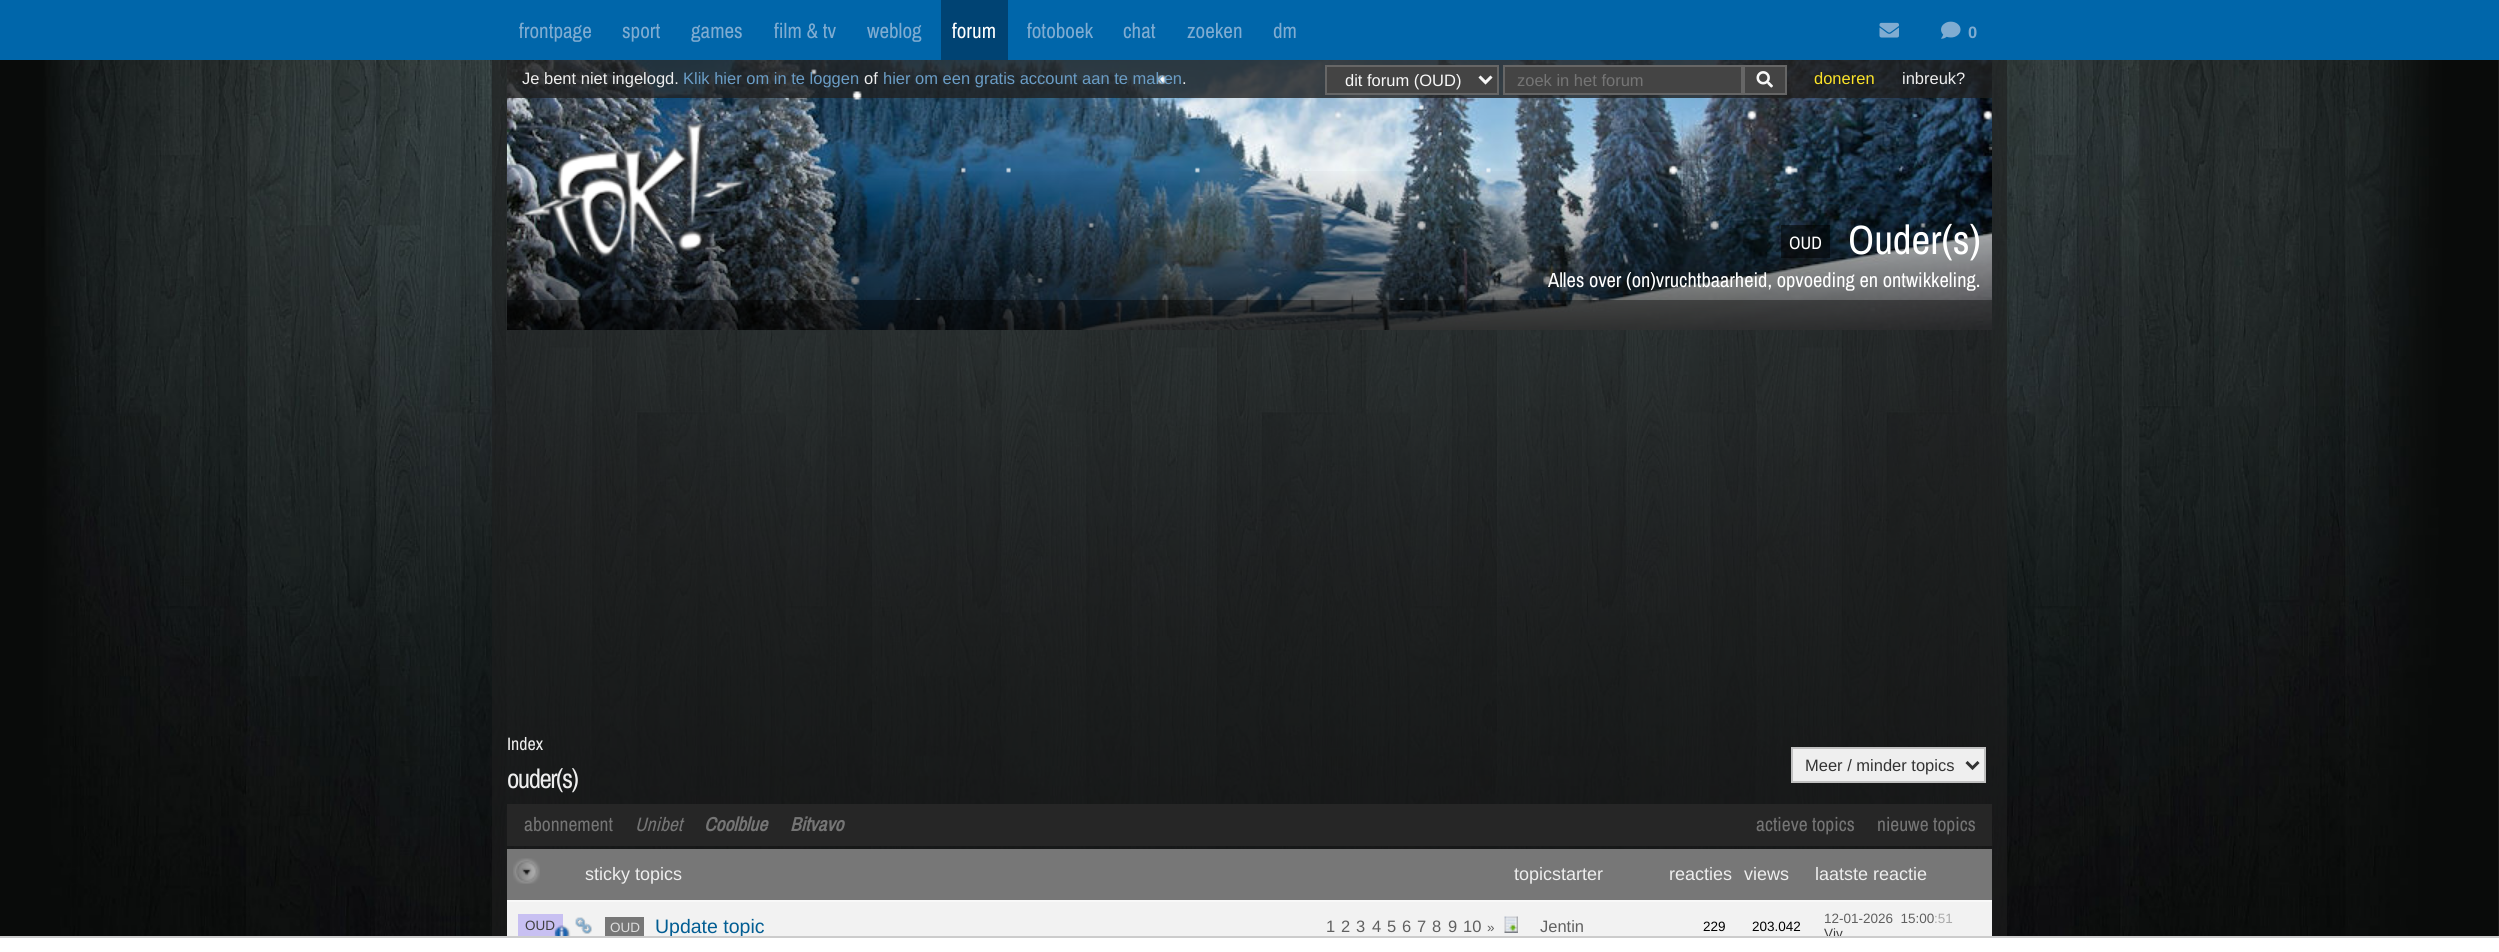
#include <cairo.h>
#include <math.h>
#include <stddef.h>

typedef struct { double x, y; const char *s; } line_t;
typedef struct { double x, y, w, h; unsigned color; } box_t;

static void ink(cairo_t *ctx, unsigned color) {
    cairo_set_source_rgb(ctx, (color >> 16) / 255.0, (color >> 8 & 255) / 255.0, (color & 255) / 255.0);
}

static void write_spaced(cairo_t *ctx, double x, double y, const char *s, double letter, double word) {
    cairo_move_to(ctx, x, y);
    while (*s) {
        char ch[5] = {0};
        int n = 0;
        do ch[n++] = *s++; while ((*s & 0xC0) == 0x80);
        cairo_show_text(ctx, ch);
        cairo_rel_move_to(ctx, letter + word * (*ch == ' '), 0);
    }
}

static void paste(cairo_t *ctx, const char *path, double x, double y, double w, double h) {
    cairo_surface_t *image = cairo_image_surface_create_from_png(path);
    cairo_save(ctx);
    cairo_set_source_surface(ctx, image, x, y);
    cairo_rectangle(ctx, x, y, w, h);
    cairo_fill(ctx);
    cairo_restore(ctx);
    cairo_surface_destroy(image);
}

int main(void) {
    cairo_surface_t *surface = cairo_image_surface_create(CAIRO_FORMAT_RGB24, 2499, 952);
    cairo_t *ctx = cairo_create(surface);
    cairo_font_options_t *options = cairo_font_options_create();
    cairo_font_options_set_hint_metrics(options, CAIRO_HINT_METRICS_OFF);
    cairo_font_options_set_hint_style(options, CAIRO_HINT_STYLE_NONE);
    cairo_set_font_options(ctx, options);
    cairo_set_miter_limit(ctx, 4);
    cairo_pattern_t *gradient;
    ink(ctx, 0xFFFFFF);
    cairo_paint(ctx);
    ink(ctx, 0x0066AA);
    cairo_rectangle(ctx, 0, 0, 2499, 60);
    cairo_fill(ctx);
    cairo_select_font_face(ctx, "Archivo Narrow", CAIRO_FONT_SLANT_NORMAL, CAIRO_FONT_WEIGHT_NORMAL);
    cairo_set_font_size(ctx, 21);
    ink(ctx, 0x80ACD1);
    {
        static const line_t items[] = {
            {519, 38, "frontpage"},
            {622, 38, "sport"},
            {691, 38, "games"},
            {774, 38, "film & tv"},
            {867, 38, "weblog"},
        };
        for (size_t i = 0; i < sizeof items / sizeof *items; i++) {
            cairo_move_to(ctx, items[i].x, items[i].y);
            cairo_show_text(ctx, items[i].s);
        }
    }
    ink(ctx, 0x004373);
    cairo_rectangle(ctx, 941, 0, 67, 60);
    cairo_fill(ctx);
    ink(ctx, 0xFFFFFF);
    cairo_move_to(ctx, 952, 38);
    cairo_show_text(ctx, "forum");
    ink(ctx, 0x80ACD1);
    {
        static const line_t items[] = {
            {1027, 38, "fotoboek"},
            {1123, 38, "chat"},
            {1187, 38, "zoeken"},
            {1273, 38, "dm"},
        };
        for (size_t i = 0; i < sizeof items / sizeof *items; i++) {
            cairo_move_to(ctx, items[i].x, items[i].y);
            cairo_show_text(ctx, items[i].s);
        }
    }
    paste(ctx, "media/1.png", 1879, 22, 20, 16);
    paste(ctx, "media/2.png", 1941, 21, 20, 18);
    cairo_select_font_face(ctx, "Liberation Sans", CAIRO_FONT_SLANT_NORMAL, CAIRO_FONT_WEIGHT_BOLD);
    cairo_set_font_size(ctx, 16.5);
    write_spaced(ctx, 1968, 38, "0", -1.5, 0);
    paste(ctx, "media/3.png", 0, 60, 2499, 876);
    cairo_set_source_rgba(ctx, 0.118, 0.118, 0.118, 0.6);
    cairo_rectangle(ctx, 492, 60, 1515, 876);
    cairo_fill(ctx);
    paste(ctx, "media/4.png", 507, 60, 1485, 270);
    cairo_set_source_rgba(ctx, 0.125, 0.125, 0.125, 0.8);
    cairo_rectangle(ctx, 507, 60, 1485, 38);
    cairo_fill(ctx);
    cairo_select_font_face(ctx, "Liberation Sans", CAIRO_FONT_SLANT_NORMAL, CAIRO_FONT_WEIGHT_NORMAL);
    ink(ctx, 0xEEEEEE);
    cairo_move_to(ctx, 864, 84);
    cairo_show_text(ctx, "of");
    cairo_move_to(ctx, 1182, 84);
    cairo_show_text(ctx, ".");
    paste(ctx, "media/5.png", 811, 69, 1181, 231);
    cairo_move_to(ctx, 522, 84);
    cairo_show_text(ctx, "Je bent niet ingelogd.");
    ink(ctx, 0x6A9DC6);
    cairo_move_to(ctx, 683, 84);
    cairo_show_text(ctx, "Klik hier om in te loggen");
    cairo_move_to(ctx, 883, 84);
    cairo_show_text(ctx, "hier om een gratis account aan te maken");
    ink(ctx, 0x444444);
    cairo_rectangle(ctx, 1326, 66, 172, 28);
    cairo_fill_preserve(ctx);
    ink(ctx, 0x666666);
    cairo_stroke(ctx);
    cairo_new_path(ctx);
    cairo_move_to(ctx, 1479.5, 76.5);
    cairo_line_to(ctx, 1485.5, 82.5);
    cairo_line_to(ctx, 1491.5, 76.5);
    ink(ctx, 0xF8F8F8);
    cairo_set_line_width(ctx, 3);
    cairo_stroke(ctx);
    cairo_move_to(ctx, 1345, 86);
    cairo_show_text(ctx, "dit forum (OUD)");
    ink(ctx, 0x444444);
    cairo_rectangle(ctx, 1504, 66, 238, 28);
    cairo_fill_preserve(ctx);
    ink(ctx, 0x666666);
    cairo_set_line_width(ctx, 2);
    cairo_stroke(ctx);
    ink(ctx, 0x757575);
    cairo_move_to(ctx, 1517, 86);
    cairo_show_text(ctx, "zoek in het forum");
    ink(ctx, 0x444444);
    cairo_rectangle(ctx, 1744, 66, 42, 28);
    cairo_fill_preserve(ctx);
    ink(ctx, 0x666666);
    cairo_stroke(ctx);
    paste(ctx, "media/6.png", 1756, 71, 17, 17);
    ink(ctx, 0xFBE329);
    cairo_move_to(ctx, 1814, 84);
    cairo_show_text(ctx, "doneren");
    ink(ctx, 0xEEEEEE);
    cairo_move_to(ctx, 1902, 84);
    cairo_show_text(ctx, "inbreuk?");
    gradient = cairo_pattern_create_linear(1250, 139, 1250, 330);
    cairo_pattern_add_color_stop_rgba(gradient, 0, 0, 0, 0, 0);
    cairo_pattern_add_color_stop_rgba(gradient, 0.14, 0, 0, 0, 0);
    cairo_pattern_add_color_stop_rgba(gradient, 0.71, 0, 0, 0, 0.44);
    cairo_pattern_add_color_stop_rgba(gradient, 0.99, 0, 0, 0, 0.65);
    cairo_set_source(ctx, gradient);
    cairo_pattern_destroy(gradient);
    cairo_rectangle(ctx, 507, 171, 1485, 159);
    cairo_fill(ctx);
    paste(ctx, "media/7.png", 522, 123, 222, 135);
    cairo_set_source_rgba(ctx, 0, 0, 0, 0.5);
    cairo_rectangle(ctx, 1781, 225, 49, 33);
    cairo_fill(ctx);
    cairo_select_font_face(ctx, "Archivo Narrow", CAIRO_FONT_SLANT_NORMAL, CAIRO_FONT_WEIGHT_NORMAL);
    cairo_set_font_size(ctx, 18);
    ink(ctx, 0xFFFFFF);
    cairo_move_to(ctx, 1789, 249);
    cairo_show_text(ctx, "OUD");
    cairo_set_font_size(ctx, 41);
    cairo_move_to(ctx, 1848, 254);
    cairo_show_text(ctx, "Ouder(s)");
    cairo_set_font_size(ctx, 20.4);
    cairo_move_to(ctx, 1548, 287);
    cairo_show_text(ctx, "Alles over (on)vruchtbaarheid, opvoeding en ontwikkeling.");
    cairo_set_source_rgba(ctx, 0, 0, 0, 0.4);
    cairo_rectangle(ctx, 507, 300, 1485, 30);
    cairo_fill(ctx);
    cairo_set_font_size(ctx, 18);
    ink(ctx, 0xEEEEEE);
    cairo_move_to(ctx, 507, 750);
    cairo_show_text(ctx, "Index");
    cairo_set_font_size(ctx, 27);
    write_spaced(ctx, 507, 788, "ouder(s)", -1.5, 0);
    ink(ctx, 0xEFEFEF);
    cairo_rectangle(ctx, 1792, 748, 193, 34);
    cairo_fill_preserve(ctx);
    ink(ctx, 0xC0C0C0);
    cairo_stroke(ctx);
    cairo_new_path(ctx);
    cairo_move_to(ctx, 1966.5, 762);
    cairo_line_to(ctx, 1972.5, 768);
    cairo_line_to(ctx, 1978.5, 762);
    ink(ctx, 0x333333);
    cairo_set_line_width(ctx, 3);
    cairo_stroke(ctx);
    cairo_select_font_face(ctx, "Liberation Sans", CAIRO_FONT_SLANT_NORMAL, CAIRO_FONT_WEIGHT_NORMAL);
    cairo_set_font_size(ctx, 16.5);
    cairo_move_to(ctx, 1805, 771);
    cairo_show_text(ctx, "Meer / minder topics");
    ink(ctx, 0x262626);
    cairo_rectangle(ctx, 507, 804, 1485, 42);
    cairo_fill(ctx);
    cairo_select_font_face(ctx, "Archivo Narrow", CAIRO_FONT_SLANT_NORMAL, CAIRO_FONT_WEIGHT_NORMAL);
    cairo_set_font_size(ctx, 19.5);
    ink(ctx, 0x757575);
    cairo_move_to(ctx, 524, 831);
    cairo_show_text(ctx, "abonnement");
    cairo_select_font_face(ctx, "Archivo Narrow", CAIRO_FONT_SLANT_ITALIC, CAIRO_FONT_WEIGHT_NORMAL);
    cairo_move_to(ctx, 635, 831);
    cairo_show_text(ctx, "Unibet");
    cairo_select_font_face(ctx, "Archivo Narrow", CAIRO_FONT_SLANT_ITALIC, CAIRO_FONT_WEIGHT_BOLD);
    cairo_move_to(ctx, 704, 831);
    cairo_show_text(ctx, "Coolblue");
    cairo_move_to(ctx, 790, 831);
    cairo_show_text(ctx, "Bitvavo");
    cairo_select_font_face(ctx, "Archivo Narrow", CAIRO_FONT_SLANT_NORMAL, CAIRO_FONT_WEIGHT_NORMAL);
    cairo_move_to(ctx, 1756, 831);
    cairo_show_text(ctx, "actieve topics");
    cairo_move_to(ctx, 1877, 831);
    cairo_show_text(ctx, "nieuwe topics");
    ink(ctx, 0x777777);
    cairo_rectangle(ctx, 507, 849, 1485, 51);
    cairo_fill(ctx);
    paste(ctx, "media/8.png", 513, 858, 27, 26);
    cairo_select_font_face(ctx, "Liberation Sans", CAIRO_FONT_SLANT_NORMAL, CAIRO_FONT_WEIGHT_NORMAL);
    cairo_set_font_size(ctx, 18);
    ink(ctx, 0xEEEEEE);
    {
        static const line_t items[] = {
            {585, 880, "sticky topics"},
            {1514, 880, "topicstarter"},
            {1669, 880, "reacties"},
            {1744, 880, "views"},
            {1815, 880, "laatste reactie"},
        };
        for (size_t i = 0; i < sizeof items / sizeof *items; i++) {
            cairo_move_to(ctx, items[i].x, items[i].y);
            cairo_show_text(ctx, items[i].s);
        }
    }
    {
        static const box_t items[] = {
            {507, 900, 1485, 2, 0xF8F8F8},
            {507, 902, 1485, 34, 0xF2F2F2},
            {518, 914, 45, 22, 0xC8C0F2},
        };
        for (size_t i = 0; i < sizeof items / sizeof *items; i++) {
            ink(ctx, items[i].color);
            cairo_rectangle(ctx, items[i].x, items[i].y, items[i].w, items[i].h);
            cairo_fill(ctx);
        }
    }
    cairo_set_font_size(ctx, 13.5);
    ink(ctx, 0x404040);
    cairo_move_to(ctx, 525, 930);
    cairo_show_text(ctx, "OUD");
    paste(ctx, "media/9.png", 554, 925, 17, 11);
    paste(ctx, "media/10.png", 575, 917, 17, 17);
    ink(ctx, 0x777777);
    cairo_rectangle(ctx, 605, 917, 39, 19);
    cairo_fill(ctx);
    ink(ctx, 0xDDDDDD);
    cairo_move_to(ctx, 610, 932);
    cairo_show_text(ctx, "OUD");
    cairo_set_font_size(ctx, 19.5);
    ink(ctx, 0x015D93);
    cairo_move_to(ctx, 655, 933);
    cairo_show_text(ctx, "Update topic");
    cairo_set_font_size(ctx, 16.5);
    ink(ctx, 0x606060);
    {
        static const line_t items[] = {
            {1326, 932, "1"},
            {1341, 932, "2"},
            {1356, 932, "3"},
            {1372, 932, "4"},
            {1387, 932, "5"},
            {1402, 932, "6"},
            {1417, 932, "7"},
            {1432, 932, "8"},
            {1448, 932, "9"},
            {1463, 932, "10"},
        };
        for (size_t i = 0; i < sizeof items / sizeof *items; i++) {
            cairo_move_to(ctx, items[i].x, items[i].y);
            cairo_show_text(ctx, items[i].s);
        }
    }
    cairo_set_font_size(ctx, 13.5);
    cairo_move_to(ctx, 1487, 932);
    cairo_show_text(ctx, "»");
    paste(ctx, "media/11.png", 1504, 916, 14, 17);
    cairo_set_font_size(ctx, 16.5);
    cairo_move_to(ctx, 1540, 932);
    cairo_show_text(ctx, "Jentin");
    cairo_set_font_size(ctx, 13.5);
    ink(ctx, 0x000000);
    cairo_move_to(ctx, 1703, 931);
    cairo_show_text(ctx, "229");
    cairo_move_to(ctx, 1752, 931);
    cairo_show_text(ctx, "203.042");
    ink(ctx, 0x606060);
    cairo_move_to(ctx, 1824, 923);
    cairo_show_text(ctx, "12-01-2026  15:00");
    ink(ctx, 0xAAAAAA);
    cairo_move_to(ctx, 1934, 923);
    cairo_show_text(ctx, ":51");
    ink(ctx, 0x404040);
    cairo_move_to(ctx, 1824, 938);
    cairo_show_text(ctx, "Viv");
    ink(ctx, 0xCCCCCC);
    cairo_rectangle(ctx, 0, 936, 2499, 2);
    cairo_fill(ctx);
    cairo_surface_write_to_png(surface, "image.png");
    cairo_font_options_destroy(options);
    cairo_destroy(ctx);
    cairo_surface_destroy(surface);
    return 0;
}
